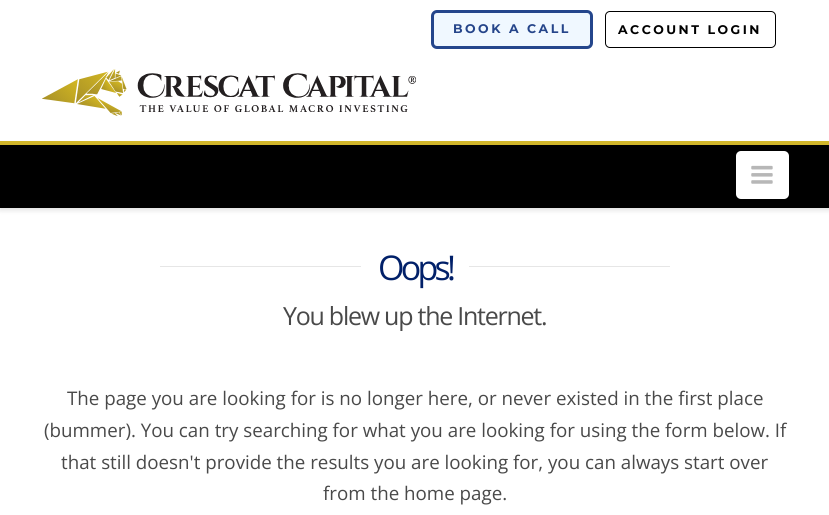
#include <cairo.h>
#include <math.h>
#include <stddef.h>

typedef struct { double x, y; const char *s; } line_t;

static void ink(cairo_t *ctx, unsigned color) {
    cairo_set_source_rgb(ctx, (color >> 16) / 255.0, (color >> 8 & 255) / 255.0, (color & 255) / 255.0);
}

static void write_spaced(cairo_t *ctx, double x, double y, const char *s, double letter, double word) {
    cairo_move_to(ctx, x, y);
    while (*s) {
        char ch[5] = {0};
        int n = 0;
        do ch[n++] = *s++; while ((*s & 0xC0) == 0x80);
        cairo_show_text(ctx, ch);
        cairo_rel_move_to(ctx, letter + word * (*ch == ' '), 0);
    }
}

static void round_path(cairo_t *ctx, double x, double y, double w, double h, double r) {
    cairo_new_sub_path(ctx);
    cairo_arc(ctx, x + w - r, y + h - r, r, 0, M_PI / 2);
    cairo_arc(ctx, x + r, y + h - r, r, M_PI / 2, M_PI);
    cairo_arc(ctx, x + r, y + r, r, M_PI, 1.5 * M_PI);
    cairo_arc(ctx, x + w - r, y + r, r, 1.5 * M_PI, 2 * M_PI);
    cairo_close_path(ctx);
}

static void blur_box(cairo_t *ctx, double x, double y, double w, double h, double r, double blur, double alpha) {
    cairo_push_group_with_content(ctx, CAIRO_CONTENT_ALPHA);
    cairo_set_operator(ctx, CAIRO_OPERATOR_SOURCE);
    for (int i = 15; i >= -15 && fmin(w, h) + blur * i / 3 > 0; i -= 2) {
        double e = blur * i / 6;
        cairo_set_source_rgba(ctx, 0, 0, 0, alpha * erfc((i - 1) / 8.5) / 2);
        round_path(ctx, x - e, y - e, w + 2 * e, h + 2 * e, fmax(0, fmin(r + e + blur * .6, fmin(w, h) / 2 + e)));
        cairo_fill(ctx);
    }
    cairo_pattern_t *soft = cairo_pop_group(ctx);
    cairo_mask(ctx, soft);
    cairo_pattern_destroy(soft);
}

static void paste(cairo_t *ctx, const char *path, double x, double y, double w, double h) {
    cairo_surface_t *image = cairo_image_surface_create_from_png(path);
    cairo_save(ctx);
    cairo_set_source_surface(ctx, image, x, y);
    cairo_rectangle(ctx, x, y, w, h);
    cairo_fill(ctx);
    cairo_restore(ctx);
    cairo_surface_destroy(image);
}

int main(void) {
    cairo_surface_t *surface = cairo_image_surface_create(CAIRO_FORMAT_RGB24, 829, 515);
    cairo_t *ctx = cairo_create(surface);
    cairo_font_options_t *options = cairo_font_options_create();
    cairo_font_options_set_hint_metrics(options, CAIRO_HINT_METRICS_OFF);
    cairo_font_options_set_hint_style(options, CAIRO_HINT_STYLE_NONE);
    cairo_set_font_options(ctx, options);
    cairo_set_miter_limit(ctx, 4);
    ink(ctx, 0xFFFFFF);
    cairo_paint(ctx);
    ink(ctx, 0xF0F8FF);
    round_path(ctx, 432.5, 11.5, 159, 36, 4.5);
    cairo_fill_preserve(ctx);
    ink(ctx, 0x24468C);
    cairo_set_line_width(ctx, 3);
    cairo_stroke(ctx);
    cairo_select_font_face(ctx, "Montserrat Thin", CAIRO_FONT_SLANT_NORMAL, CAIRO_FONT_WEIGHT_NORMAL);
    cairo_set_font_size(ctx, 12.5);
    ink(ctx, 0x25458A);
    write_spaced(ctx, 453, 33, "BOOK A CALL", 2.5, 0);
    round_path(ctx, 605.5, 11.5, 170, 36, 4.5);
    ink(ctx, 0x000000);
    cairo_set_line_width(ctx, 1);
    cairo_stroke(ctx);
    write_spaced(ctx, 618, 34, "ACCOUNT LOGIN", 2.5, 0);
    ink(ctx, 0xD2B72B);
    cairo_rectangle(ctx, 0, 141, 829, 4);
    cairo_fill(ctx);
    paste(ctx, "media/1.png", 42, 69, 374, 47);
    ink(ctx, 0x000000);
    blur_box(ctx, 0, 148, 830, 62, 0, 2.5, 0.13);
    ink(ctx, 0x000000);
    cairo_rectangle(ctx, 0, 145, 829, 63);
    cairo_fill(ctx);
    ink(ctx, 0xFFFFFF);
    round_path(ctx, 736, 151, 53, 48, 5);
    cairo_fill(ctx);
    paste(ctx, "media/2.png", 751, 165, 22, 19);
    ink(ctx, 0xE6E6E6);
    cairo_rectangle(ctx, 160, 266, 201, 1);
    cairo_fill(ctx);
    cairo_select_font_face(ctx, "Open Sans", CAIRO_FONT_SLANT_NORMAL, CAIRO_FONT_WEIGHT_NORMAL);
    cairo_set_font_size(ctx, 34);
    ink(ctx, 0x012069);
    write_spaced(ctx, 378, 280, "Oops!", -3.75, 0);
    ink(ctx, 0xE6E6E6);
    cairo_rectangle(ctx, 469, 266, 201, 1);
    cairo_fill(ctx);
    cairo_set_font_size(ctx, 25);
    ink(ctx, 0x494949);
    write_spaced(ctx, 283, 325, "You blew up the Internet.", -1.25, 0);
    cairo_set_font_size(ctx, 18.75);
    {
        static const line_t items[] = {
            {67, 405, "The page you are looking for is no longer here, or never existed in the first place"},
            {44, 437, "(bummer). You can try searching for what you are looking for using the form below. If"},
            {61, 469, "that still doesn't provide the results you are looking for, you can always start over"},
            {323, 500, "from the home page."},
        };
        for (size_t i = 0; i < sizeof items / sizeof *items; i++) {
            cairo_move_to(ctx, items[i].x, items[i].y);
            cairo_show_text(ctx, items[i].s);
        }
    }
    cairo_surface_write_to_png(surface, "image.png");
    cairo_font_options_destroy(options);
    cairo_destroy(ctx);
    cairo_surface_destroy(surface);
    return 0;
}
